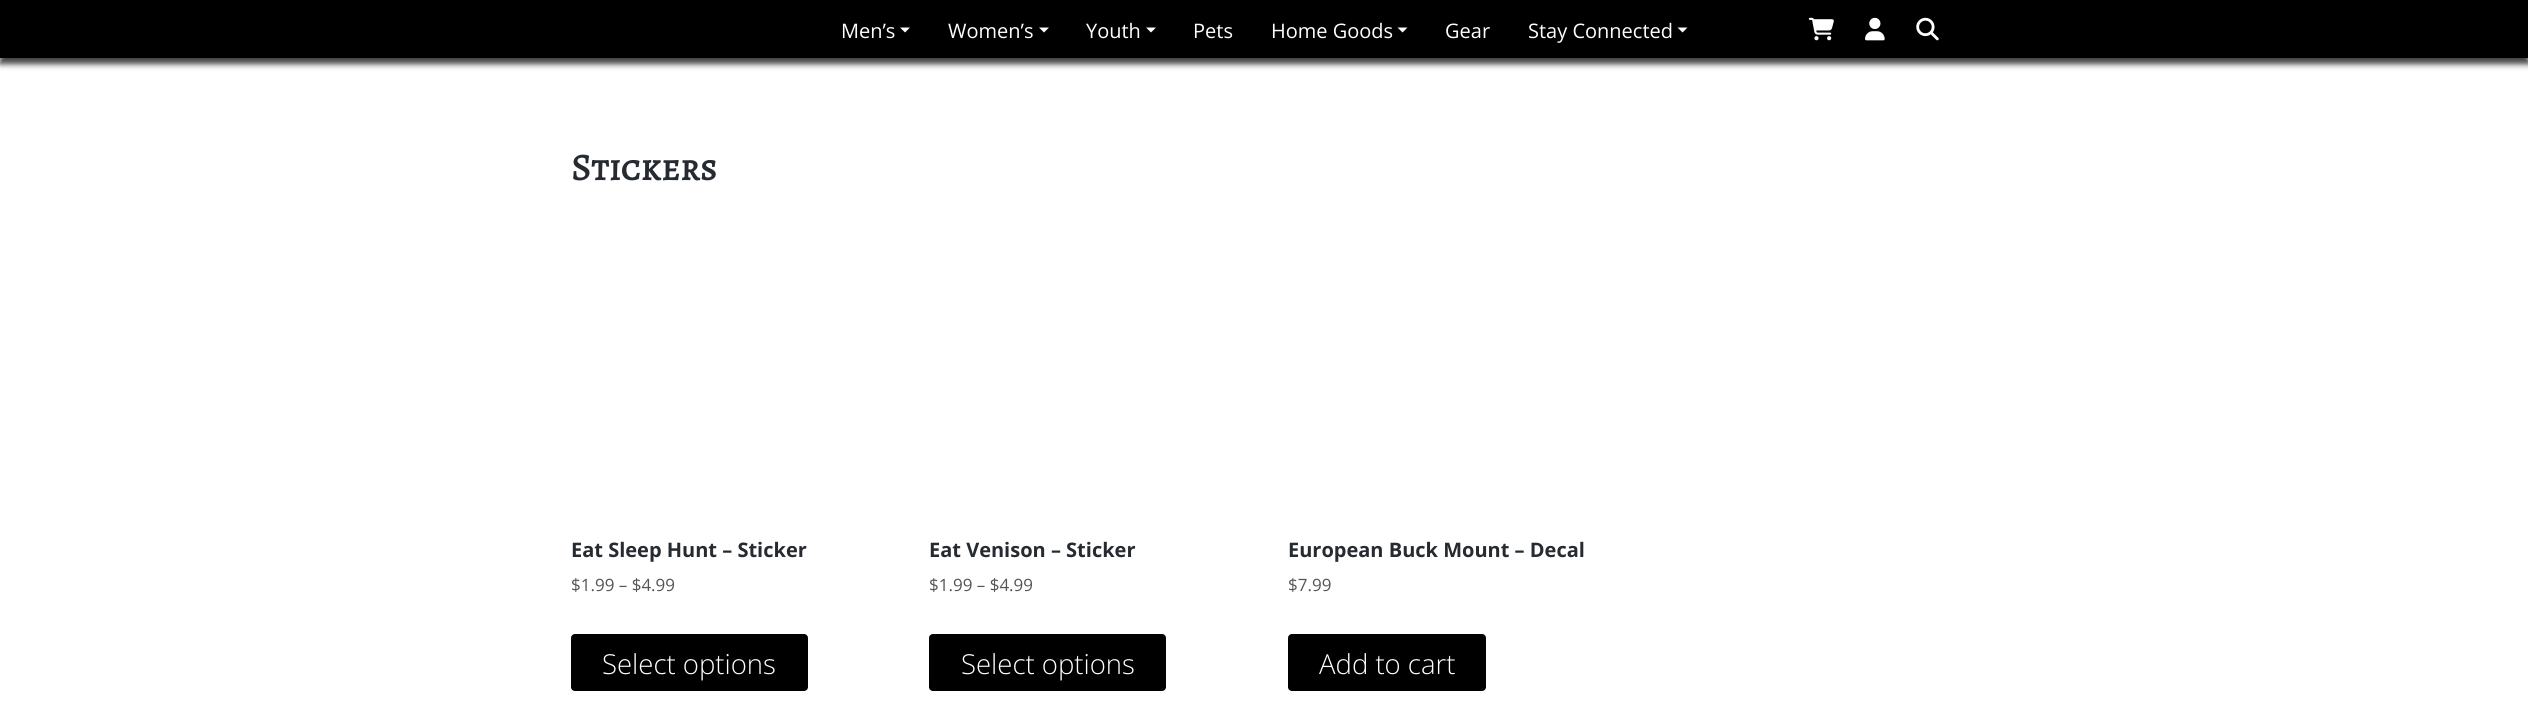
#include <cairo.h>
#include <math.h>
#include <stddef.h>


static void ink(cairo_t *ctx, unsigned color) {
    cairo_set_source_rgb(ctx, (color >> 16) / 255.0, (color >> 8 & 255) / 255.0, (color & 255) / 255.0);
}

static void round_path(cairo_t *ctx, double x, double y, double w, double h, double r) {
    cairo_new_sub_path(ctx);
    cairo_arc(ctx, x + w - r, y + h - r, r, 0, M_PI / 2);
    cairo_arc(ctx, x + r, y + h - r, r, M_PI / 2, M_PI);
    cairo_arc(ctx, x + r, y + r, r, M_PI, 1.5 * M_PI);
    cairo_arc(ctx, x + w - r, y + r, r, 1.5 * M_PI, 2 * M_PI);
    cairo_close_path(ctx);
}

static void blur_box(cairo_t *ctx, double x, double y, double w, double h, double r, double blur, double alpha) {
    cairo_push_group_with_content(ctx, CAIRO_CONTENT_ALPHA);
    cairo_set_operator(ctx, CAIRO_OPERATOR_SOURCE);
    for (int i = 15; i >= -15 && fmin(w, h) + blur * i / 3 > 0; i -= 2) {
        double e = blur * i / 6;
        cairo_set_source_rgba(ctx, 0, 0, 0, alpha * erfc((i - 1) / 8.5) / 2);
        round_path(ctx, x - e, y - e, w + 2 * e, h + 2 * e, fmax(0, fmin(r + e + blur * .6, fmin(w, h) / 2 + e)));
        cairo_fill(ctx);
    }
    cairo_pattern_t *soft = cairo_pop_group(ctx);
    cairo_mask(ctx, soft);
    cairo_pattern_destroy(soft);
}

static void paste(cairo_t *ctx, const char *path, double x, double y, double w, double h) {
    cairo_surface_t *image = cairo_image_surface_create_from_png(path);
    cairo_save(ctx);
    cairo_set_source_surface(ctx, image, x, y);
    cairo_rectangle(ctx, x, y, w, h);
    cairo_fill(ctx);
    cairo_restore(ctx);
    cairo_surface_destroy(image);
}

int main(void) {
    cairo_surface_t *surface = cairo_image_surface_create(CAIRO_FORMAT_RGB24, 2528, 707);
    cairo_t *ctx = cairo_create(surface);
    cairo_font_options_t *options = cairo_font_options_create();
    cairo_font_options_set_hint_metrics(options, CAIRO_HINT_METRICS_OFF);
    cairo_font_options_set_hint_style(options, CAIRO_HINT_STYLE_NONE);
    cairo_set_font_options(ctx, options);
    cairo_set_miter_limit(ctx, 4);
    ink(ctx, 0xFFFFFF);
    cairo_paint(ctx);
    ink(ctx, 0x000000);
    blur_box(ctx, 0, 6, 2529, 58, 0, 3, 0.75);
    ink(ctx, 0x000000);
    cairo_rectangle(ctx, 0, 0, 2528, 58);
    cairo_fill(ctx);
    cairo_select_font_face(ctx, "Open Sans", CAIRO_FONT_SLANT_NORMAL, CAIRO_FONT_WEIGHT_NORMAL);
    cairo_set_font_size(ctx, 20);
    ink(ctx, 0xFFFFFF);
    cairo_move_to(ctx, 841, 38);
    cairo_show_text(ctx, "Men’s");
    cairo_new_path(ctx);
    cairo_move_to(ctx, 900, 27.5);
    cairo_line_to(ctx, 910, 27.5);
    cairo_line_to(ctx, 905, 32.5);
    cairo_close_path(ctx);
    cairo_fill(ctx);
    cairo_move_to(ctx, 948, 38);
    cairo_show_text(ctx, "Women’s");
    cairo_new_path(ctx);
    cairo_move_to(ctx, 1039, 27.5);
    cairo_line_to(ctx, 1049, 27.5);
    cairo_line_to(ctx, 1044, 32.5);
    cairo_close_path(ctx);
    cairo_fill(ctx);
    cairo_move_to(ctx, 1086, 38);
    cairo_show_text(ctx, "Youth");
    cairo_new_path(ctx);
    cairo_move_to(ctx, 1146, 27.5);
    cairo_line_to(ctx, 1156, 27.5);
    cairo_line_to(ctx, 1151, 32.5);
    cairo_close_path(ctx);
    cairo_fill(ctx);
    cairo_move_to(ctx, 1193, 38);
    cairo_show_text(ctx, "Pets");
    cairo_move_to(ctx, 1271, 38);
    cairo_show_text(ctx, "Home Goods");
    cairo_new_path(ctx);
    cairo_move_to(ctx, 1397.5, 27.5);
    cairo_line_to(ctx, 1407.5, 27.5);
    cairo_line_to(ctx, 1402.5, 32.5);
    cairo_close_path(ctx);
    cairo_fill(ctx);
    cairo_move_to(ctx, 1445, 38);
    cairo_show_text(ctx, "Gear");
    cairo_move_to(ctx, 1528, 38);
    cairo_show_text(ctx, "Stay Connected");
    cairo_new_path(ctx);
    cairo_move_to(ctx, 1677.5, 27.5);
    cairo_line_to(ctx, 1687.5, 27.5);
    cairo_line_to(ctx, 1682.5, 32.5);
    cairo_close_path(ctx);
    cairo_fill(ctx);
    paste(ctx, "media/1.png", 1808, 17, 26, 24);
    paste(ctx, "media/2.png", 1865, 17, 20, 24);
    paste(ctx, "media/3.png", 1916, 17, 23, 24);
    cairo_select_font_face(ctx, "Alegreya SC", CAIRO_FONT_SLANT_NORMAL, CAIRO_FONT_WEIGHT_BOLD);
    cairo_set_font_size(ctx, 37.5);
    ink(ctx, 0x262B31);
    cairo_move_to(ctx, 571, 180);
    cairo_show_text(ctx, "Stickers");
    cairo_select_font_face(ctx, "Open Sans", CAIRO_FONT_SLANT_NORMAL, CAIRO_FONT_WEIGHT_BOLD);
    cairo_set_font_size(ctx, 20);
    cairo_move_to(ctx, 571, 557);
    cairo_show_text(ctx, "Eat Sleep Hunt – Sticker");
    cairo_select_font_face(ctx, "Open Sans", CAIRO_FONT_SLANT_NORMAL, CAIRO_FONT_WEIGHT_NORMAL);
    cairo_set_font_size(ctx, 17);
    ink(ctx, 0x565656);
    cairo_move_to(ctx, 571, 591);
    cairo_show_text(ctx, "$1.99 – $4.99");
    ink(ctx, 0x000000);
    round_path(ctx, 571, 634, 237, 57, 4);
    cairo_fill(ctx);
    cairo_select_font_face(ctx, "Open Sans Light", CAIRO_FONT_SLANT_NORMAL, CAIRO_FONT_WEIGHT_NORMAL);
    cairo_set_font_size(ctx, 27.5);
    ink(ctx, 0xFFFFFF);
    cairo_move_to(ctx, 602, 674);
    cairo_show_text(ctx, "Select options");
    cairo_select_font_face(ctx, "Open Sans", CAIRO_FONT_SLANT_NORMAL, CAIRO_FONT_WEIGHT_BOLD);
    cairo_set_font_size(ctx, 20);
    ink(ctx, 0x262B31);
    cairo_move_to(ctx, 929, 557);
    cairo_show_text(ctx, "Eat Venison – Sticker");
    cairo_select_font_face(ctx, "Open Sans", CAIRO_FONT_SLANT_NORMAL, CAIRO_FONT_WEIGHT_NORMAL);
    cairo_set_font_size(ctx, 17);
    ink(ctx, 0x565656);
    cairo_move_to(ctx, 929, 591);
    cairo_show_text(ctx, "$1.99 – $4.99");
    ink(ctx, 0x000000);
    round_path(ctx, 929, 634, 237, 57, 4);
    cairo_fill(ctx);
    cairo_select_font_face(ctx, "Open Sans Light", CAIRO_FONT_SLANT_NORMAL, CAIRO_FONT_WEIGHT_NORMAL);
    cairo_set_font_size(ctx, 27.5);
    ink(ctx, 0xFFFFFF);
    cairo_move_to(ctx, 961, 674);
    cairo_show_text(ctx, "Select options");
    cairo_select_font_face(ctx, "Open Sans", CAIRO_FONT_SLANT_NORMAL, CAIRO_FONT_WEIGHT_BOLD);
    cairo_set_font_size(ctx, 20);
    ink(ctx, 0x262B31);
    cairo_move_to(ctx, 1288, 557);
    cairo_show_text(ctx, "European Buck Mount – Decal");
    cairo_select_font_face(ctx, "Open Sans", CAIRO_FONT_SLANT_NORMAL, CAIRO_FONT_WEIGHT_NORMAL);
    cairo_set_font_size(ctx, 17);
    ink(ctx, 0x565656);
    cairo_move_to(ctx, 1288, 591);
    cairo_show_text(ctx, "$7.99");
    ink(ctx, 0x000000);
    round_path(ctx, 1288, 634, 198, 57, 4);
    cairo_fill(ctx);
    cairo_select_font_face(ctx, "Open Sans Light", CAIRO_FONT_SLANT_NORMAL, CAIRO_FONT_WEIGHT_NORMAL);
    cairo_set_font_size(ctx, 27.5);
    ink(ctx, 0xFFFFFF);
    cairo_move_to(ctx, 1319, 674);
    cairo_show_text(ctx, "Add to cart");
    cairo_surface_write_to_png(surface, "image.png");
    cairo_font_options_destroy(options);
    cairo_destroy(ctx);
    cairo_surface_destroy(surface);
    return 0;
}
